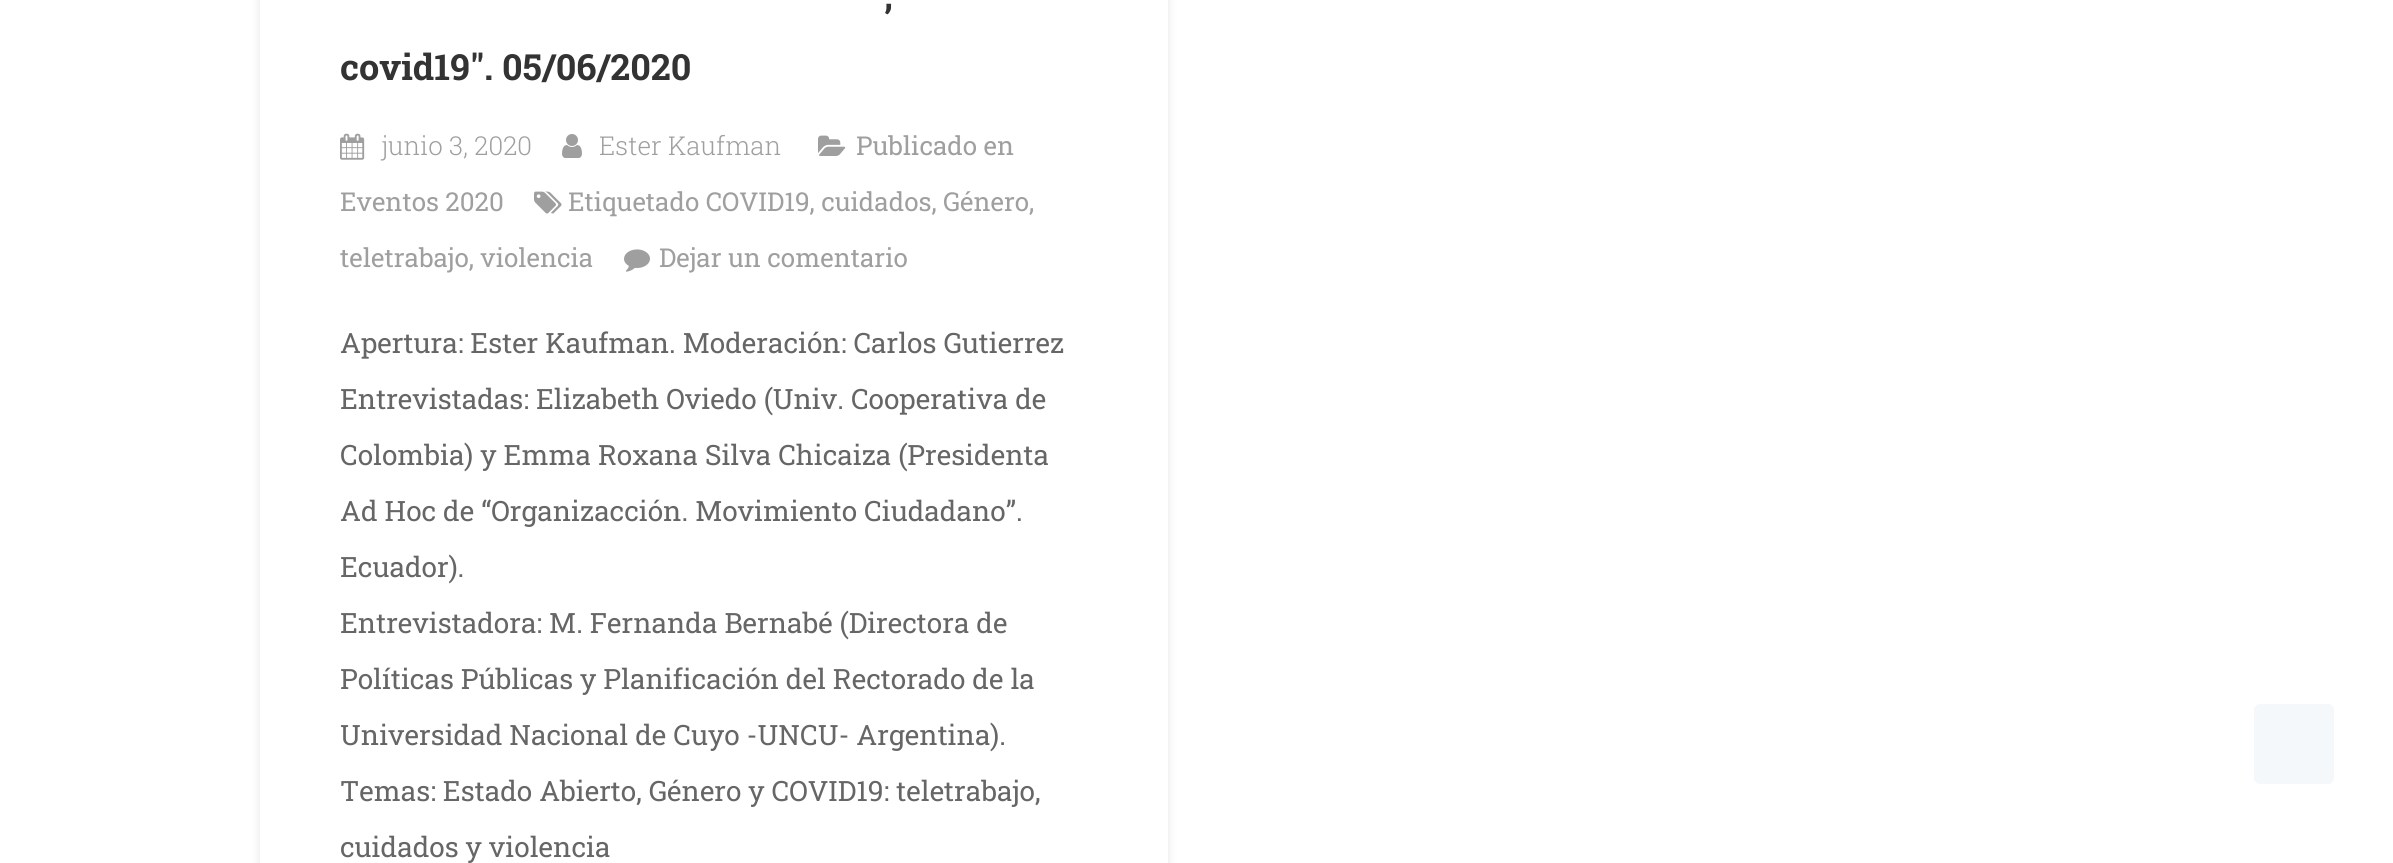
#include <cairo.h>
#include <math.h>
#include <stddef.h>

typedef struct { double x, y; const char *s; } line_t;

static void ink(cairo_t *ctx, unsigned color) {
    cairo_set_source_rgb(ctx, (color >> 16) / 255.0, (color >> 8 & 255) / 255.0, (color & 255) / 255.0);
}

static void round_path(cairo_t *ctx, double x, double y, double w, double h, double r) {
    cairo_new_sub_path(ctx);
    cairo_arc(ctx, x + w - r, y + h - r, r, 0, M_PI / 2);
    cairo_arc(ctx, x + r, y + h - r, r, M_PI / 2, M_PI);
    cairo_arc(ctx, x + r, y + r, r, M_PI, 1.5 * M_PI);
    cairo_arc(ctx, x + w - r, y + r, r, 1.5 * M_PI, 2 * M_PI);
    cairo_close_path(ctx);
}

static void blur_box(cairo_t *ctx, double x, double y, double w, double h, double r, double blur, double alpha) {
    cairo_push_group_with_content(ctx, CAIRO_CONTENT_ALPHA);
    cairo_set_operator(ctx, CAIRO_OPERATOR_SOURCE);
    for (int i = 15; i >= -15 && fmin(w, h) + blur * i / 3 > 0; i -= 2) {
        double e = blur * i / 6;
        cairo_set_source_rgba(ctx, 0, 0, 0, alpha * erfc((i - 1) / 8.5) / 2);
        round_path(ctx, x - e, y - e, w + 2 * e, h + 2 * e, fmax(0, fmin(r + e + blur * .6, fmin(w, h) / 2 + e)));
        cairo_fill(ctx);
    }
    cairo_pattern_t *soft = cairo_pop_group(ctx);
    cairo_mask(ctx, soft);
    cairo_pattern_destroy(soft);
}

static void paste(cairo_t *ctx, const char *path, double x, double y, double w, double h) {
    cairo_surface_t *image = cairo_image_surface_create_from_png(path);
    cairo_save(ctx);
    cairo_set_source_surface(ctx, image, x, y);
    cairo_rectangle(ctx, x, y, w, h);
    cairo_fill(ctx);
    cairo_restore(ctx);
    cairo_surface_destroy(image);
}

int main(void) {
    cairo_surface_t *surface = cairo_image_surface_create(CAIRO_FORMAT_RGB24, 2393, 863);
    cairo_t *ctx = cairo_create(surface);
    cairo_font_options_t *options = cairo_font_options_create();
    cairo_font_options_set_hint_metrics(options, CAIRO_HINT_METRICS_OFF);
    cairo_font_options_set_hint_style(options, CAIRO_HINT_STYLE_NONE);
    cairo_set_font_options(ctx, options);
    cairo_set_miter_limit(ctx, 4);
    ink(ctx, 0xFFFFFF);
    cairo_paint(ctx);
    cairo_save(ctx);
    cairo_set_fill_rule(ctx, CAIRO_FILL_RULE_EVEN_ODD);
    cairo_new_path(ctx);
    cairo_move_to(ctx, 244, 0);
    cairo_line_to(ctx, 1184, 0);
    cairo_line_to(ctx, 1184, 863);
    cairo_line_to(ctx, 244, 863);
    cairo_close_path(ctx);
    cairo_move_to(ctx, 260, -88);
    cairo_line_to(ctx, 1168, -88);
    cairo_line_to(ctx, 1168, 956);
    cairo_line_to(ctx, 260, 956);
    cairo_close_path(ctx);
    cairo_clip(ctx);
    ink(ctx, 0x000000);
    blur_box(ctx, 260, -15, 908, 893, 0, 5, 0.1);
    cairo_restore(ctx);
    cairo_select_font_face(ctx, "Roboto Slab", CAIRO_FONT_SLANT_NORMAL, CAIRO_FONT_WEIGHT_BOLD);
    cairo_set_font_size(ctx, 36);
    ink(ctx, 0x333333);
    cairo_move_to(ctx, 884, 8);
    cairo_show_text(ctx, ",");
    cairo_move_to(ctx, 340, 80);
    cairo_show_text(ctx, "covid19″. 05/06/2020");
    paste(ctx, "media/1.png", 340, 133, 25, 27);
    cairo_select_font_face(ctx, "Roboto Slab Light", CAIRO_FONT_SLANT_NORMAL, CAIRO_FONT_WEIGHT_NORMAL);
    cairo_set_font_size(ctx, 26);
    ink(ctx, 0x9F9F9F);
    cairo_move_to(ctx, 381, 155);
    cairo_show_text(ctx, "junio 3, 2020");
    paste(ctx, "media/2.png", 562, 134, 20, 24);
    cairo_move_to(ctx, 599, 155);
    cairo_show_text(ctx, "Ester Kaufman");
    paste(ctx, "media/3.png", 818, 135, 28, 21);
    cairo_select_font_face(ctx, "Roboto Slab", CAIRO_FONT_SLANT_NORMAL, CAIRO_FONT_WEIGHT_NORMAL);
    cairo_move_to(ctx, 856, 155);
    cairo_show_text(ctx, "Publicado en");
    cairo_move_to(ctx, 340, 211);
    cairo_show_text(ctx, "Eventos 2020");
    paste(ctx, "media/4.png", 534, 191, 28, 23);
    cairo_move_to(ctx, 568, 211);
    cairo_show_text(ctx, "Etiquetado COVID19, cuidados, Género,");
    cairo_move_to(ctx, 340, 267);
    cairo_show_text(ctx, "teletrabajo, violencia");
    paste(ctx, "media/5.png", 624, 249, 26, 23);
    cairo_move_to(ctx, 659, 267);
    cairo_show_text(ctx, "Dejar un comentario");
    cairo_set_font_size(ctx, 28);
    ink(ctx, 0x666666);
    {
        static const line_t items[] = {
            {340, 353, "Apertura: Ester Kaufman. Moderación: Carlos Gutierrez"},
            {340, 409, "Entrevistadas: Elizabeth Oviedo (Univ. Cooperativa de"},
            {340, 465, "Colombia) y Emma Roxana Silva Chicaiza (Presidenta"},
            {340, 521, "Ad Hoc de “Organizacción. Movimiento Ciudadano”."},
            {340, 577, "Ecuador)."},
            {340, 633, "Entrevistadora: M. Fernanda Bernabé (Directora de"},
            {340, 689, "Políticas Públicas y Planificación del Rectorado de la"},
            {340, 745, "Universidad Nacional de Cuyo -UNCU- Argentina)."},
            {340, 801, "Temas: Estado Abierto, Género y COVID19: teletrabajo,"},
            {340, 857, "cuidados y violencia"},
        };
        for (size_t i = 0; i < sizeof items / sizeof *items; i++) {
            cairo_move_to(ctx, items[i].x, items[i].y);
            cairo_show_text(ctx, items[i].s);
        }
    }
    ink(ctx, 0xF5F8FA);
    round_path(ctx, 2254, 704, 80, 80, 6);
    cairo_fill(ctx);
    cairo_surface_write_to_png(surface, "image.png");
    cairo_font_options_destroy(options);
    cairo_destroy(ctx);
    cairo_surface_destroy(surface);
    return 0;
}
